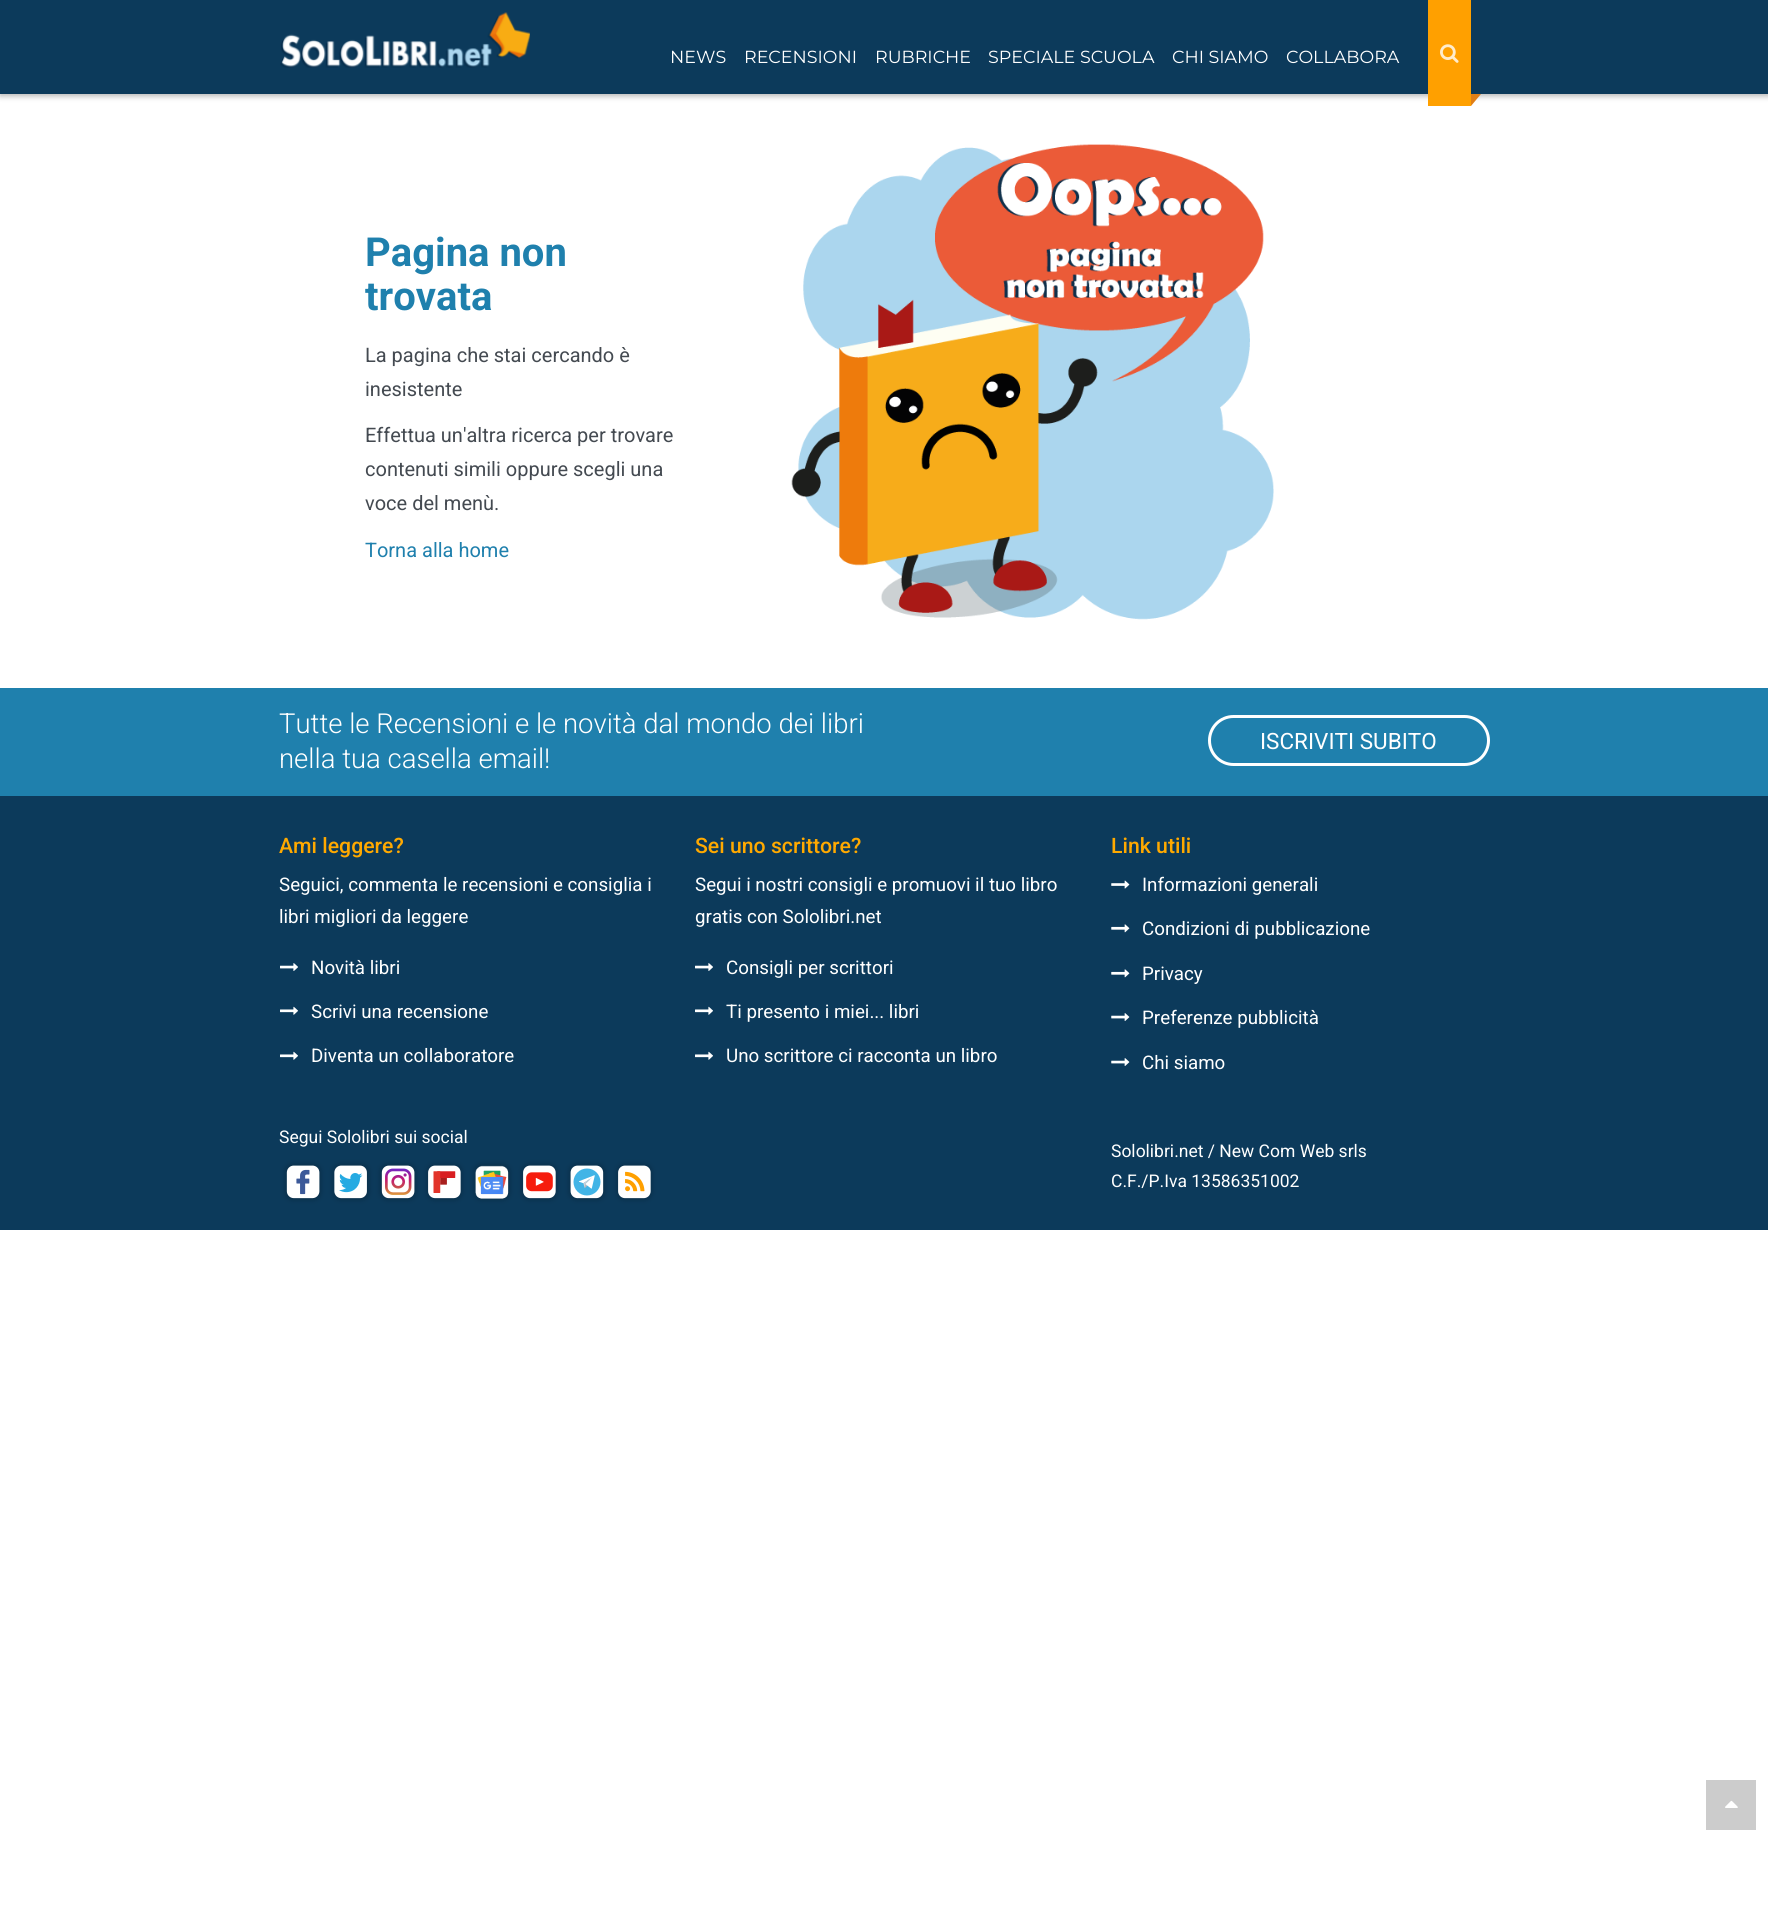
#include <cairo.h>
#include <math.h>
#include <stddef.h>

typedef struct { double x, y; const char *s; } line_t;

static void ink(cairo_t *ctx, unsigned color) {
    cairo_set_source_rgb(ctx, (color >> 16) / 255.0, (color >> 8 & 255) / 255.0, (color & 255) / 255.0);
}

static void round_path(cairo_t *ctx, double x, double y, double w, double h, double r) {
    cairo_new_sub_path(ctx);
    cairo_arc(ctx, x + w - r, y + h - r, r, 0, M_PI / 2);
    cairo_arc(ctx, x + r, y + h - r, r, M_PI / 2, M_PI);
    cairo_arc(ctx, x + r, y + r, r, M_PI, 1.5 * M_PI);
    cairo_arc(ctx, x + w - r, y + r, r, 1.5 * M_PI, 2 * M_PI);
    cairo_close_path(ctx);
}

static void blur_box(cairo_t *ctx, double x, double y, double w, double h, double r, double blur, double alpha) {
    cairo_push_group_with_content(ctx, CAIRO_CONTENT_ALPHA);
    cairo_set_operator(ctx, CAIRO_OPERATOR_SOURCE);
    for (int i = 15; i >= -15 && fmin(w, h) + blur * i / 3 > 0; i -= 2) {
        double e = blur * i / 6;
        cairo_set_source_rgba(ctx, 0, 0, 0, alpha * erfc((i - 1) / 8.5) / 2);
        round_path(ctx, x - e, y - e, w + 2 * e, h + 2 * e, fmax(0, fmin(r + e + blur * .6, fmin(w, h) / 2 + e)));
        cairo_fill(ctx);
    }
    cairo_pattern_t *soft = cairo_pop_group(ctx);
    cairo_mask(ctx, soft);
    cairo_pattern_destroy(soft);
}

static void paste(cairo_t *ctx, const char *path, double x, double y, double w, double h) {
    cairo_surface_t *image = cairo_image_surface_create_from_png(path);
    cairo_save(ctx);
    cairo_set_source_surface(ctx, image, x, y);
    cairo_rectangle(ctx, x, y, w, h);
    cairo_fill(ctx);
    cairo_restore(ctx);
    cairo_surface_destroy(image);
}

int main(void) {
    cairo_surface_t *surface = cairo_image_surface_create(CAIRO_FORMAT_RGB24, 1768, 1929);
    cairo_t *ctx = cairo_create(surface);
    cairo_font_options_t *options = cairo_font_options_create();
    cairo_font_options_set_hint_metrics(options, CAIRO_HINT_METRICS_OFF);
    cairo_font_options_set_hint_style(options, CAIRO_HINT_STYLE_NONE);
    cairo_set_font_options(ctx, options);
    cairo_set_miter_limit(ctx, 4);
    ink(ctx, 0xFFFFFF);
    cairo_paint(ctx);
    ink(ctx, 0x000000);
    blur_box(ctx, 0, 3, 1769, 93, 0, 3, 0.3);
    ink(ctx, 0x0C3A5B);
    cairo_rectangle(ctx, 0, 0, 1768, 94);
    cairo_fill(ctx);
    paste(ctx, "media/1.png", 280, 12, 250, 56);
    cairo_select_font_face(ctx, "Montserrat Thin", CAIRO_FONT_SLANT_NORMAL, CAIRO_FONT_WEIGHT_NORMAL);
    cairo_set_font_size(ctx, 17.5);
    ink(ctx, 0xFFFFFF);
    {
        static const line_t items[] = {
            {670, 63, "NEWS"},
            {744, 63, "RECENSIONI"},
            {875, 63, "RUBRICHE"},
            {988, 63, "SPECIALE SCUOLA"},
            {1172, 63, "CHI SIAMO"},
            {1286, 63, "COLLABORA"},
        };
        for (size_t i = 0; i < sizeof items / sizeof *items; i++) {
            cairo_move_to(ctx, items[i].x, items[i].y);
            cairo_show_text(ctx, items[i].s);
        }
    }
    ink(ctx, 0xFFA000);
    cairo_rectangle(ctx, 1428, 0, 43, 106);
    cairo_fill(ctx);
    paste(ctx, "media/2.png", 1440, 44, 19, 19);
    ink(ctx, 0xE07F17);
    cairo_new_path(ctx);
    cairo_move_to(ctx, 1471, 94);
    cairo_line_to(ctx, 1481, 94);
    cairo_line_to(ctx, 1471, 106);
    cairo_close_path(ctx);
    cairo_fill(ctx);
    cairo_select_font_face(ctx, "Roboto", CAIRO_FONT_SLANT_NORMAL, CAIRO_FONT_WEIGHT_BOLD);
    cairo_set_font_size(ctx, 40);
    ink(ctx, 0x1F80AD);
    cairo_move_to(ctx, 365, 266);
    cairo_show_text(ctx, "Pagina non");
    cairo_move_to(ctx, 365, 310);
    cairo_show_text(ctx, "trovata");
    cairo_select_font_face(ctx, "Roboto", CAIRO_FONT_SLANT_NORMAL, CAIRO_FONT_WEIGHT_NORMAL);
    cairo_set_font_size(ctx, 20);
    ink(ctx, 0x444A51);
    {
        static const line_t items[] = {
            {365, 362, "La pagina che stai cercando è"},
            {365, 396, "inesistente"},
            {365, 442, "Effettua un'altra ricerca per trovare"},
            {365, 476, "contenuti simili oppure scegli una"},
            {365, 510, "voce del menù."},
        };
        for (size_t i = 0; i < sizeof items / sizeof *items; i++) {
            cairo_move_to(ctx, items[i].x, items[i].y);
            cairo_show_text(ctx, items[i].s);
        }
    }
    ink(ctx, 0x1F80AD);
    cairo_move_to(ctx, 365, 557);
    cairo_show_text(ctx, "Torna alla home");
    paste(ctx, "media/3.png", 791, 144, 483, 476);
    cairo_rectangle(ctx, 0, 688, 1768, 108);
    cairo_fill(ctx);
    cairo_select_font_face(ctx, "Roboto Light", CAIRO_FONT_SLANT_NORMAL, CAIRO_FONT_WEIGHT_NORMAL);
    cairo_set_font_size(ctx, 27.5);
    ink(ctx, 0xFFFFFF);
    cairo_move_to(ctx, 279, 733);
    cairo_show_text(ctx, "Tutte le Recensioni e le novità dal mondo dei libri");
    cairo_move_to(ctx, 279, 768);
    cairo_show_text(ctx, "nella tua casella email!");
    round_path(ctx, 1209.5, 716.5, 279, 48, 24);
    cairo_set_line_width(ctx, 3);
    cairo_stroke(ctx);
    cairo_select_font_face(ctx, "Roboto", CAIRO_FONT_SLANT_NORMAL, CAIRO_FONT_WEIGHT_NORMAL);
    cairo_set_font_size(ctx, 22.5);
    cairo_move_to(ctx, 1260, 749);
    cairo_show_text(ctx, "ISCRIVITI SUBITO");
    ink(ctx, 0x0C3A5B);
    cairo_rectangle(ctx, 0, 796, 1768, 434);
    cairo_fill(ctx);
    cairo_select_font_face(ctx, "Roboto Medium", CAIRO_FONT_SLANT_NORMAL, CAIRO_FONT_WEIGHT_NORMAL);
    cairo_set_font_size(ctx, 21.25);
    ink(ctx, 0xFFA900);
    cairo_move_to(ctx, 279, 853);
    cairo_show_text(ctx, "Ami leggere?");
    cairo_select_font_face(ctx, "Roboto", CAIRO_FONT_SLANT_NORMAL, CAIRO_FONT_WEIGHT_NORMAL);
    cairo_set_font_size(ctx, 18.75);
    ink(ctx, 0xFFFFFF);
    cairo_move_to(ctx, 279, 891);
    cairo_show_text(ctx, "Seguici, commenta le recensioni e consiglia i");
    cairo_move_to(ctx, 279, 923);
    cairo_show_text(ctx, "libri migliori da leggere");
    paste(ctx, "media/4.png", 280, 963, 18, 8);
    cairo_move_to(ctx, 311, 974);
    cairo_show_text(ctx, "Novità libri");
    paste(ctx, "media/5.png", 280, 1006, 18, 9);
    cairo_move_to(ctx, 311, 1018);
    cairo_show_text(ctx, "Scrivi una recensione");
    paste(ctx, "media/5.png", 280, 1051, 18, 9);
    cairo_move_to(ctx, 311, 1062);
    cairo_show_text(ctx, "Diventa un collaboratore");
    cairo_select_font_face(ctx, "Roboto Medium", CAIRO_FONT_SLANT_NORMAL, CAIRO_FONT_WEIGHT_NORMAL);
    cairo_set_font_size(ctx, 21.25);
    ink(ctx, 0xFFA900);
    cairo_move_to(ctx, 695, 853);
    cairo_show_text(ctx, "Sei uno scrittore?");
    cairo_select_font_face(ctx, "Roboto", CAIRO_FONT_SLANT_NORMAL, CAIRO_FONT_WEIGHT_NORMAL);
    cairo_set_font_size(ctx, 18.75);
    ink(ctx, 0xFFFFFF);
    cairo_move_to(ctx, 695, 891);
    cairo_show_text(ctx, "Segui i nostri consigli e promuovi il tuo libro");
    cairo_move_to(ctx, 695, 923);
    cairo_show_text(ctx, "gratis con Sololibri.net");
    paste(ctx, "media/4.png", 695, 963, 18, 8);
    cairo_move_to(ctx, 726, 974);
    cairo_show_text(ctx, "Consigli per scrittori");
    paste(ctx, "media/5.png", 695, 1006, 18, 9);
    cairo_move_to(ctx, 726, 1018);
    cairo_show_text(ctx, "Ti presento i miei... libri");
    paste(ctx, "media/5.png", 695, 1051, 18, 9);
    cairo_move_to(ctx, 726, 1062);
    cairo_show_text(ctx, "Uno scrittore ci racconta un libro");
    cairo_select_font_face(ctx, "Roboto Medium", CAIRO_FONT_SLANT_NORMAL, CAIRO_FONT_WEIGHT_NORMAL);
    cairo_set_font_size(ctx, 21.25);
    ink(ctx, 0xFFA900);
    cairo_move_to(ctx, 1111, 853);
    cairo_show_text(ctx, "Link utili");
    paste(ctx, "media/6.png", 1111, 880, 19, 9);
    cairo_select_font_face(ctx, "Roboto", CAIRO_FONT_SLANT_NORMAL, CAIRO_FONT_WEIGHT_NORMAL);
    cairo_set_font_size(ctx, 18.75);
    ink(ctx, 0xFFFFFF);
    cairo_move_to(ctx, 1142, 891);
    cairo_show_text(ctx, "Informazioni generali");
    paste(ctx, "media/7.png", 1111, 924, 19, 9);
    cairo_move_to(ctx, 1142, 935);
    cairo_show_text(ctx, "Condizioni di pubblicazione");
    paste(ctx, "media/7.png", 1111, 969, 19, 9);
    cairo_move_to(ctx, 1142, 980);
    cairo_show_text(ctx, "Privacy");
    paste(ctx, "media/8.png", 1111, 1013, 19, 8);
    cairo_move_to(ctx, 1142, 1024);
    cairo_show_text(ctx, "Preferenze pubblicità");
    paste(ctx, "media/8.png", 1111, 1058, 19, 8);
    cairo_move_to(ctx, 1142, 1069);
    cairo_show_text(ctx, "Chi siamo");
    cairo_set_font_size(ctx, 17.5);
    cairo_move_to(ctx, 279, 1143);
    cairo_show_text(ctx, "Segui Sololibri sui social");
    ink(ctx, 0x000000);
    blur_box(ctx, 286, 1165, 34, 34, 6, 3, 0.25);
    paste(ctx, "media/9.png", 286, 1165, 34, 34);
    blur_box(ctx, 334, 1165, 34, 34, 6, 3, 0.25);
    paste(ctx, "media/10.png", 334, 1165, 33, 34);
    blur_box(ctx, 381, 1165, 34, 34, 6, 3, 0.25);
    paste(ctx, "media/11.png", 381, 1165, 34, 34);
    blur_box(ctx, 428, 1165, 33, 34, 6, 3, 0.25);
    paste(ctx, "media/12.png", 428, 1165, 33, 34);
    blur_box(ctx, 475, 1165, 34, 34, 6, 3, 0.25);
    paste(ctx, "media/13.png", 475, 1165, 34, 34);
    blur_box(ctx, 523, 1165, 33, 34, 6, 3, 0.25);
    paste(ctx, "media/14.png", 523, 1165, 33, 34);
    blur_box(ctx, 570, 1165, 34, 34, 6, 3, 0.25);
    paste(ctx, "media/15.png", 570, 1165, 34, 34);
    blur_box(ctx, 618, 1165, 33, 34, 6, 3, 0.25);
    paste(ctx, "media/16.png", 618, 1165, 33, 34);
    ink(ctx, 0xFFFFFF);
    cairo_move_to(ctx, 1111, 1157);
    cairo_show_text(ctx, "Sololibri.net / New Com Web srls");
    cairo_move_to(ctx, 1111, 1187);
    cairo_show_text(ctx, "C.F./P.Iva 13586351002");
    ink(ctx, 0xCCCCCC);
    cairo_rectangle(ctx, 1706, 1780, 50, 50);
    cairo_fill(ctx);
    paste(ctx, "media/17.png", 1725, 1800, 13, 8);
    cairo_surface_write_to_png(surface, "image.png");
    cairo_font_options_destroy(options);
    cairo_destroy(ctx);
    cairo_surface_destroy(surface);
    return 0;
}
